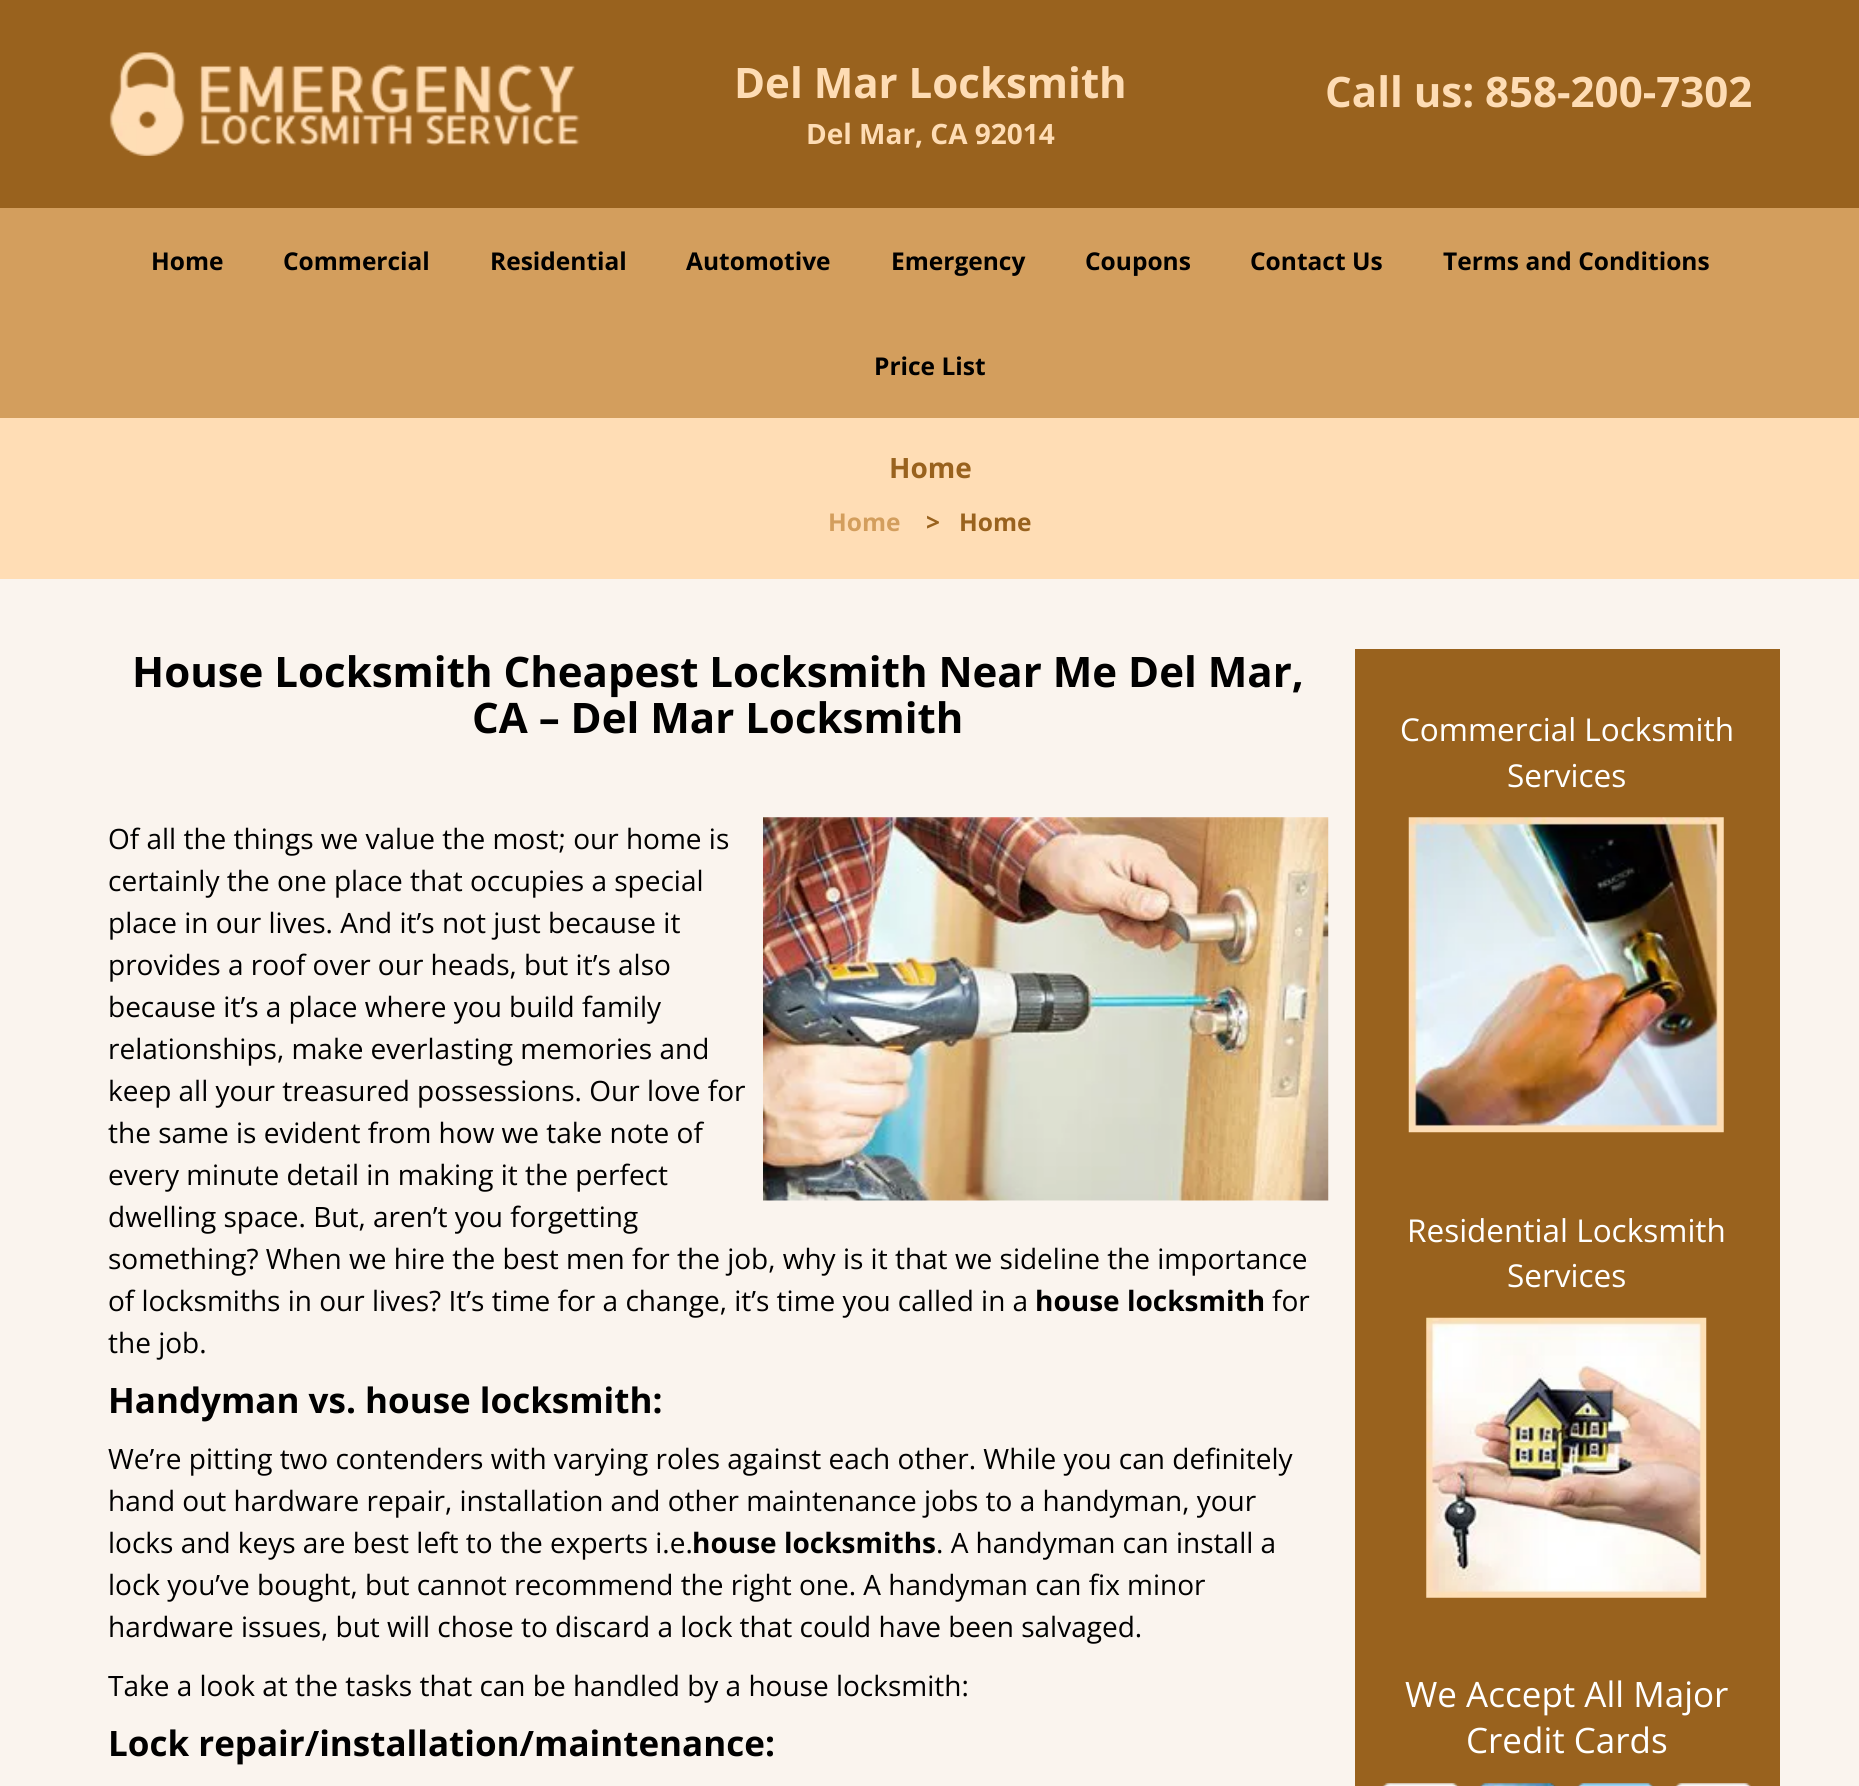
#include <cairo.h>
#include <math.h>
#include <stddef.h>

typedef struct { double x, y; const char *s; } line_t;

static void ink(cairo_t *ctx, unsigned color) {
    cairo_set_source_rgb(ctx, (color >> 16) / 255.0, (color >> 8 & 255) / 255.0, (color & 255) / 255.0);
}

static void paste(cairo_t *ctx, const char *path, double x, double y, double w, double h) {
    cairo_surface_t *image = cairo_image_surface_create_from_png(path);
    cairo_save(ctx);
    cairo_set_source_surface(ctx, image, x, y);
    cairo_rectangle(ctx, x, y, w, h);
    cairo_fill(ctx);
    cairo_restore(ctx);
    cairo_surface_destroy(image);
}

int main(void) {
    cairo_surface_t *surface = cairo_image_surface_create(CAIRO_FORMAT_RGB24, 1859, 1786);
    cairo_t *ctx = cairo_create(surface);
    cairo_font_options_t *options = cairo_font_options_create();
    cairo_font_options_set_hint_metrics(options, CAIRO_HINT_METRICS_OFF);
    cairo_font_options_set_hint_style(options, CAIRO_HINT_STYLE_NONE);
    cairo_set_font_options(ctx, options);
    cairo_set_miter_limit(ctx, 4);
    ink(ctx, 0x99621E);
    cairo_paint(ctx);
    paste(ctx, "media/1.png", 109, 52, 471, 104);
    cairo_select_font_face(ctx, "Open Sans", CAIRO_FONT_SLANT_NORMAL, CAIRO_FONT_WEIGHT_BOLD);
    cairo_set_font_size(ctx, 42);
    ink(ctx, 0xFEDCB4);
    cairo_move_to(ctx, 734, 98);
    cairo_show_text(ctx, "Del Mar Locksmith");
    cairo_set_font_size(ctx, 28);
    cairo_move_to(ctx, 806, 144);
    cairo_show_text(ctx, "Del Mar, CA 92014");
    cairo_set_font_size(ctx, 42);
    cairo_move_to(ctx, 1325, 107);
    cairo_show_text(ctx, "Call us: 858-200-7302");
    ink(ctx, 0xD39E5D);
    cairo_rectangle(ctx, 0, 208, 1859, 210);
    cairo_fill(ctx);
    cairo_set_font_size(ctx, 24.5);
    ink(ctx, 0x000000);
    {
        static const line_t items[] = {
            {151, 270, "Home"},
            {283, 270, "Commercial"},
            {490, 270, "Residential"},
            {686, 270, "Automotive"},
            {891, 270, "Emergency"},
            {1085, 270, "Coupons"},
            {1250, 270, "Contact Us"},
            {1443, 270, "Terms and Conditions"},
            {874, 375, "Price List"},
        };
        for (size_t i = 0; i < sizeof items / sizeof *items; i++) {
            cairo_move_to(ctx, items[i].x, items[i].y);
            cairo_show_text(ctx, items[i].s);
        }
    }
    ink(ctx, 0xFFDDB5);
    cairo_rectangle(ctx, 0, 418, 1859, 161);
    cairo_fill(ctx);
    cairo_set_font_size(ctx, 28);
    ink(ctx, 0x99621E);
    cairo_move_to(ctx, 889, 478);
    cairo_show_text(ctx, "Home");
    cairo_set_font_size(ctx, 24.5);
    ink(ctx, 0xD39E5D);
    cairo_move_to(ctx, 828, 531);
    cairo_show_text(ctx, "Home");
    ink(ctx, 0x99621E);
    cairo_move_to(ctx, 926, 531);
    cairo_show_text(ctx, ">");
    cairo_move_to(ctx, 959, 531);
    cairo_show_text(ctx, "Home");
    ink(ctx, 0xFAF4EE);
    cairo_rectangle(ctx, 0, 579, 1859, 1207);
    cairo_fill(ctx);
    cairo_set_font_size(ctx, 42);
    ink(ctx, 0x000000);
    cairo_move_to(ctx, 132, 687);
    cairo_show_text(ctx, "House Locksmith Cheapest Locksmith Near Me Del Mar,");
    cairo_move_to(ctx, 472, 733);
    cairo_show_text(ctx, "CA – Del Mar Locksmith");
    cairo_select_font_face(ctx, "Open Sans", CAIRO_FONT_SLANT_NORMAL, CAIRO_FONT_WEIGHT_NORMAL);
    cairo_set_font_size(ctx, 28);
    cairo_move_to(ctx, 108, 849);
    cairo_show_text(ctx, "Of all the things we value the most; our home is");
    paste(ctx, "media/2.png", 763, 817, 566, 384);
    {
        static const line_t items[] = {
            {108, 891, "certainly the one place that occupies a special"},
            {108, 933, "place in our lives. And it’s not just because it"},
            {108, 975, "provides a roof over our heads, but it’s also"},
            {108, 1017, "because it’s a place where you build family"},
            {108, 1059, "relationships, make everlasting memories and"},
            {108, 1101, "keep all your treasured possessions. Our love for"},
            {108, 1143, "the same is evident from how we take note of"},
            {108, 1185, "every minute detail in making it the perfect"},
            {108, 1227, "dwelling space. But, aren’t you forgetting"},
            {108, 1269, "something? When we hire the best men for the job, why is it that we sideline the importance"},
            {108, 1311, "of locksmiths in our lives? It’s time for a change, it’s time you called in a"},
        };
        for (size_t i = 0; i < sizeof items / sizeof *items; i++) {
            cairo_move_to(ctx, items[i].x, items[i].y);
            cairo_show_text(ctx, items[i].s);
        }
    }
    cairo_select_font_face(ctx, "Open Sans", CAIRO_FONT_SLANT_NORMAL, CAIRO_FONT_WEIGHT_BOLD);
    cairo_move_to(ctx, 1035, 1311);
    cairo_show_text(ctx, "house locksmith");
    cairo_select_font_face(ctx, "Open Sans", CAIRO_FONT_SLANT_NORMAL, CAIRO_FONT_WEIGHT_NORMAL);
    cairo_move_to(ctx, 1272, 1311);
    cairo_show_text(ctx, "for");
    cairo_move_to(ctx, 108, 1353);
    cairo_show_text(ctx, "the job.");
    cairo_select_font_face(ctx, "Open Sans", CAIRO_FONT_SLANT_NORMAL, CAIRO_FONT_WEIGHT_BOLD);
    cairo_set_font_size(ctx, 35);
    cairo_move_to(ctx, 108, 1413);
    cairo_show_text(ctx, "Handyman vs. house locksmith:");
    cairo_select_font_face(ctx, "Open Sans", CAIRO_FONT_SLANT_NORMAL, CAIRO_FONT_WEIGHT_NORMAL);
    cairo_set_font_size(ctx, 28);
    {
        static const line_t items[] = {
            {108, 1469, "We’re pitting two contenders with varying roles against each other. While you can definitely"},
            {108, 1511, "hand out hardware repair, installation and other maintenance jobs to a handyman, your"},
            {108, 1553, "locks and keys are best left to the experts i.e."},
        };
        for (size_t i = 0; i < sizeof items / sizeof *items; i++) {
            cairo_move_to(ctx, items[i].x, items[i].y);
            cairo_show_text(ctx, items[i].s);
        }
    }
    cairo_select_font_face(ctx, "Open Sans", CAIRO_FONT_SLANT_NORMAL, CAIRO_FONT_WEIGHT_BOLD);
    cairo_move_to(ctx, 692, 1553);
    cairo_show_text(ctx, "house locksmiths");
    cairo_select_font_face(ctx, "Open Sans", CAIRO_FONT_SLANT_NORMAL, CAIRO_FONT_WEIGHT_NORMAL);
    {
        static const line_t items[] = {
            {936, 1553, ". A handyman can install a"},
            {108, 1595, "lock you’ve bought, but cannot recommend the right one. A handyman can fix minor"},
            {108, 1637, "hardware issues, but will chose to discard a lock that could have been salvaged."},
            {108, 1696, "Take a look at the tasks that can be handled by a house locksmith:"},
        };
        for (size_t i = 0; i < sizeof items / sizeof *items; i++) {
            cairo_move_to(ctx, items[i].x, items[i].y);
            cairo_show_text(ctx, items[i].s);
        }
    }
    cairo_select_font_face(ctx, "Open Sans", CAIRO_FONT_SLANT_NORMAL, CAIRO_FONT_WEIGHT_BOLD);
    cairo_set_font_size(ctx, 35);
    cairo_move_to(ctx, 108, 1756);
    cairo_show_text(ctx, "Lock repair/installation/maintenance:");
    ink(ctx, 0x99621E);
    cairo_rectangle(ctx, 1355, 649, 425, 1137);
    cairo_fill(ctx);
    cairo_select_font_face(ctx, "Open Sans", CAIRO_FONT_SLANT_NORMAL, CAIRO_FONT_WEIGHT_NORMAL);
    cairo_set_font_size(ctx, 31.5);
    ink(ctx, 0xFFFFFF);
    cairo_move_to(ctx, 1400, 741);
    cairo_show_text(ctx, "Commercial Locksmith");
    cairo_move_to(ctx, 1507, 787);
    cairo_show_text(ctx, "Services");
    paste(ctx, "media/3.png", 1408, 817, 316, 316);
    cairo_move_to(ctx, 1407, 1242);
    cairo_show_text(ctx, "Residential Locksmith");
    cairo_move_to(ctx, 1507, 1287);
    cairo_show_text(ctx, "Services");
    paste(ctx, "media/4.png", 1426, 1317, 281, 281);
    cairo_set_font_size(ctx, 35);
    cairo_move_to(ctx, 1405, 1707);
    cairo_show_text(ctx, "We Accept All Major");
    cairo_move_to(ctx, 1466, 1753);
    cairo_show_text(ctx, "Credit Cards");
    paste(ctx, "media/5.png", 1382, 1783, 369, 3);
    cairo_surface_write_to_png(surface, "image.png");
    cairo_font_options_destroy(options);
    cairo_destroy(ctx);
    cairo_surface_destroy(surface);
    return 0;
}
